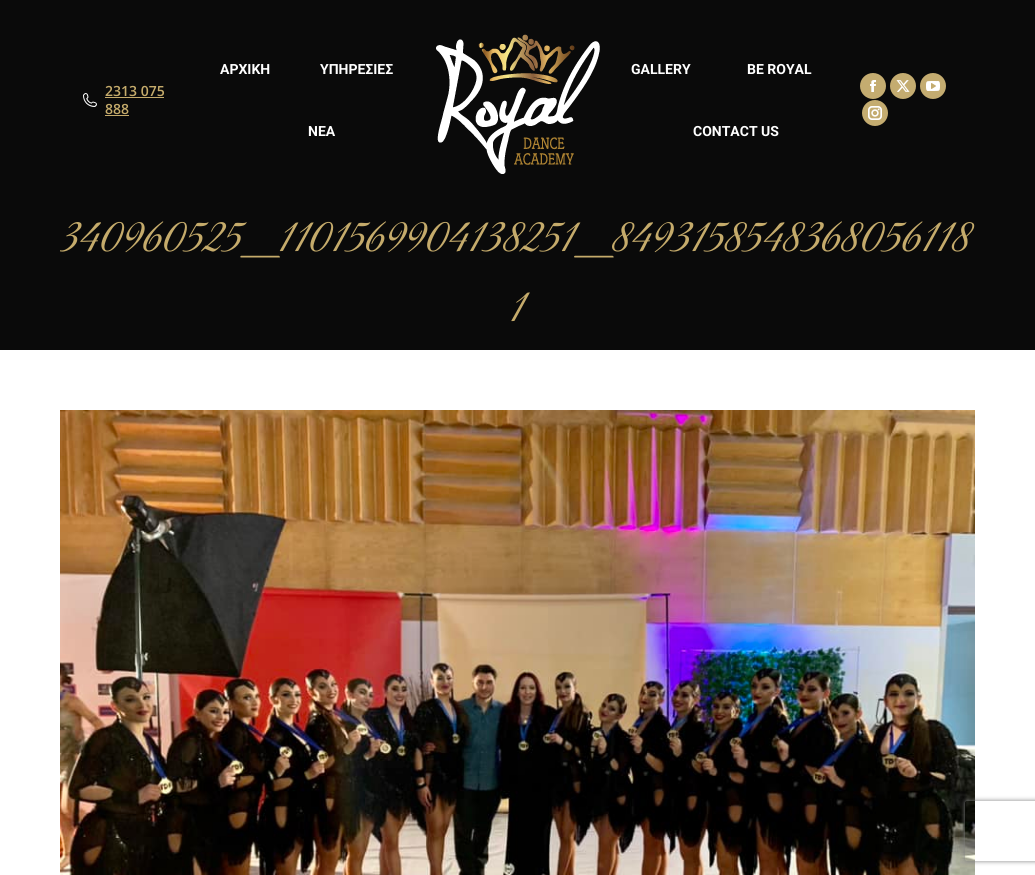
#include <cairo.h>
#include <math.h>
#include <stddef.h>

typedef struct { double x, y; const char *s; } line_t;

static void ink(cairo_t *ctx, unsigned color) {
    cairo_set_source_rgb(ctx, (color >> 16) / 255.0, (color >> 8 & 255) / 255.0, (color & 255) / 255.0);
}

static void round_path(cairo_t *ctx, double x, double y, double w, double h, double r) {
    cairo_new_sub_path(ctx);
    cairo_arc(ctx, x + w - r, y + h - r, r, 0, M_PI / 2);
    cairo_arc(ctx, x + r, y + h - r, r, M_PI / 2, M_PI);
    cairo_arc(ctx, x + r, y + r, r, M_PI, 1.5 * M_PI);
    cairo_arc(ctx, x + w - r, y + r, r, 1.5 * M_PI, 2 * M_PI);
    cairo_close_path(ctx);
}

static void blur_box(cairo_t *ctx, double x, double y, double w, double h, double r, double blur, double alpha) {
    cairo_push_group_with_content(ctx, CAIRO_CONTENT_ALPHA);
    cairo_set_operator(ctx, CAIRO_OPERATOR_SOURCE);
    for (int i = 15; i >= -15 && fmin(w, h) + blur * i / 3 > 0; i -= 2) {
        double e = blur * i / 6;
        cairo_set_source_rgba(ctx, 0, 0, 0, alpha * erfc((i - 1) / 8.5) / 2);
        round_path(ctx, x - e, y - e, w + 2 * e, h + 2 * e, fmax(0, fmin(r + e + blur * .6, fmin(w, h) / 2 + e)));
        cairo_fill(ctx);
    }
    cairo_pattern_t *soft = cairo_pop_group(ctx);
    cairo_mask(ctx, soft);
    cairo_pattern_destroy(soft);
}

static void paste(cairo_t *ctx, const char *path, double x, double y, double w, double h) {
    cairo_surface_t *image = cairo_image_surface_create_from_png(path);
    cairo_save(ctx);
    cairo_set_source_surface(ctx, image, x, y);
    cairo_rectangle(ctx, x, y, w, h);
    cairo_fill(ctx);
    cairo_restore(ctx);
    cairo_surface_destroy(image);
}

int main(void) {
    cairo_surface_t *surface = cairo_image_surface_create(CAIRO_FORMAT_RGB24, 1035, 875);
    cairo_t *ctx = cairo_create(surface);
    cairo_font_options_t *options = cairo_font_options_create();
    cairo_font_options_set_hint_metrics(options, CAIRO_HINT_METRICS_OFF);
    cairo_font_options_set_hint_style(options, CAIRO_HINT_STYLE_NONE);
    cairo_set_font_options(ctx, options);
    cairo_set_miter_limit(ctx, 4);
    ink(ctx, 0xFFFFFF);
    cairo_paint(ctx);
    ink(ctx, 0x0A0A0A);
    cairo_rectangle(ctx, 0, 0, 1035, 350);
    cairo_fill(ctx);
    paste(ctx, "media/1.png", 83, 93, 14, 14);
    cairo_select_font_face(ctx, "Open Sans SemiBold", CAIRO_FONT_SLANT_NORMAL, CAIRO_FONT_WEIGHT_NORMAL);
    cairo_set_font_size(ctx, 14);
    ink(ctx, 0xC5AB6B);
    cairo_move_to(ctx, 105, 96);
    cairo_show_text(ctx, "2313 075");
    cairo_rectangle(ctx, 105, 97, 59, 1);
    cairo_fill(ctx);
    cairo_move_to(ctx, 105, 114);
    cairo_show_text(ctx, "888");
    cairo_rectangle(ctx, 105, 115, 24, 1);
    cairo_fill(ctx);
    cairo_select_font_face(ctx, "Roboto", CAIRO_FONT_SLANT_NORMAL, CAIRO_FONT_WEIGHT_BOLD);
    ink(ctx, 0xFFFFFF);
    {
        static const line_t items[] = {
            {220, 74, "ΑΡΧΙΚΗ"},
            {320, 74, "ΥΠΗΡΕΣΙΕΣ"},
            {308, 136, "ΝΕΑ"},
        };
        for (size_t i = 0; i < sizeof items / sizeof *items; i++) {
            cairo_move_to(ctx, items[i].x, items[i].y);
            cairo_show_text(ctx, items[i].s);
        }
    }
    paste(ctx, "media/2.png", 436, 34, 164, 140);
    {
        static const line_t items[] = {
            {631, 74, "GALLERY"},
            {747, 74, "BE ROYAL"},
            {693, 136, "CONTACT US"},
        };
        for (size_t i = 0; i < sizeof items / sizeof *items; i++) {
            cairo_move_to(ctx, items[i].x, items[i].y);
            cairo_show_text(ctx, items[i].s);
        }
    }
    ink(ctx, 0xC4AC70);
    cairo_new_path(ctx);
    cairo_arc(ctx, 873, 86, 13, 0, 2 * M_PI);
    cairo_fill(ctx);
    paste(ctx, "media/3.png", 870, 80, 6, 12);
    cairo_arc(ctx, 903, 86, 13, 0, 2 * M_PI);
    cairo_fill(ctx);
    paste(ctx, "media/4.png", 896, 80, 14, 12);
    cairo_arc(ctx, 933, 86, 13, 0, 2 * M_PI);
    cairo_fill(ctx);
    paste(ctx, "media/5.png", 926, 81, 14, 10);
    cairo_arc(ctx, 875, 113, 13, 0, 2 * M_PI);
    cairo_fill(ctx);
    paste(ctx, "media/6.png", 868, 106, 14, 14);
    cairo_save(ctx);
    cairo_rectangle(ctx, 60, 205, 915, 140);
    cairo_clip(ctx);
    cairo_select_font_face(ctx, "Great Vibes", CAIRO_FONT_SLANT_NORMAL, CAIRO_FONT_WEIGHT_NORMAL);
    cairo_set_font_size(ctx, 50);
    ink(ctx, 0xC5AB6B);
    cairo_move_to(ctx, 60, 251);
    cairo_show_text(ctx, "340960525_1101569904138251_8493158548368056118");
    cairo_restore(ctx);
    cairo_select_font_face(ctx, "Great Vibes", CAIRO_FONT_SLANT_NORMAL, CAIRO_FONT_WEIGHT_NORMAL);
    cairo_set_font_size(ctx, 50);
    ink(ctx, 0xC5AB6B);
    cairo_move_to(ctx, 510, 321);
    cairo_show_text(ctx, "1");
    paste(ctx, "media/7.png", 60, 410, 915, 465);
    cairo_save(ctx);
    cairo_set_fill_rule(ctx, CAIRO_FILL_RULE_EVEN_ODD);
    cairo_new_path(ctx);
    cairo_move_to(ctx, 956, 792);
    cairo_line_to(ctx, 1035, 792);
    cairo_line_to(ctx, 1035, 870);
    cairo_line_to(ctx, 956, 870);
    cairo_close_path(ctx);
    cairo_move_to(ctx, 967, 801);
    cairo_line_to(ctx, 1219, 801);
    cairo_curve_to(ctx, 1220, 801, 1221, 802, 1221, 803);
    cairo_line_to(ctx, 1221, 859);
    cairo_curve_to(ctx, 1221, 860, 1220, 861, 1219, 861);
    cairo_line_to(ctx, 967, 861);
    cairo_curve_to(ctx, 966, 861, 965, 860, 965, 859);
    cairo_line_to(ctx, 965, 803);
    cairo_curve_to(ctx, 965, 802, 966, 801, 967, 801);
    cairo_close_path(ctx);
    cairo_clip(ctx);
    ink(ctx, 0x808080);
    blur_box(ctx, 965, 801, 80, 60, 2, 2.5, 1);
    cairo_restore(ctx);
    cairo_surface_write_to_png(surface, "image.png");
    cairo_font_options_destroy(options);
    cairo_destroy(ctx);
    cairo_surface_destroy(surface);
    return 0;
}
